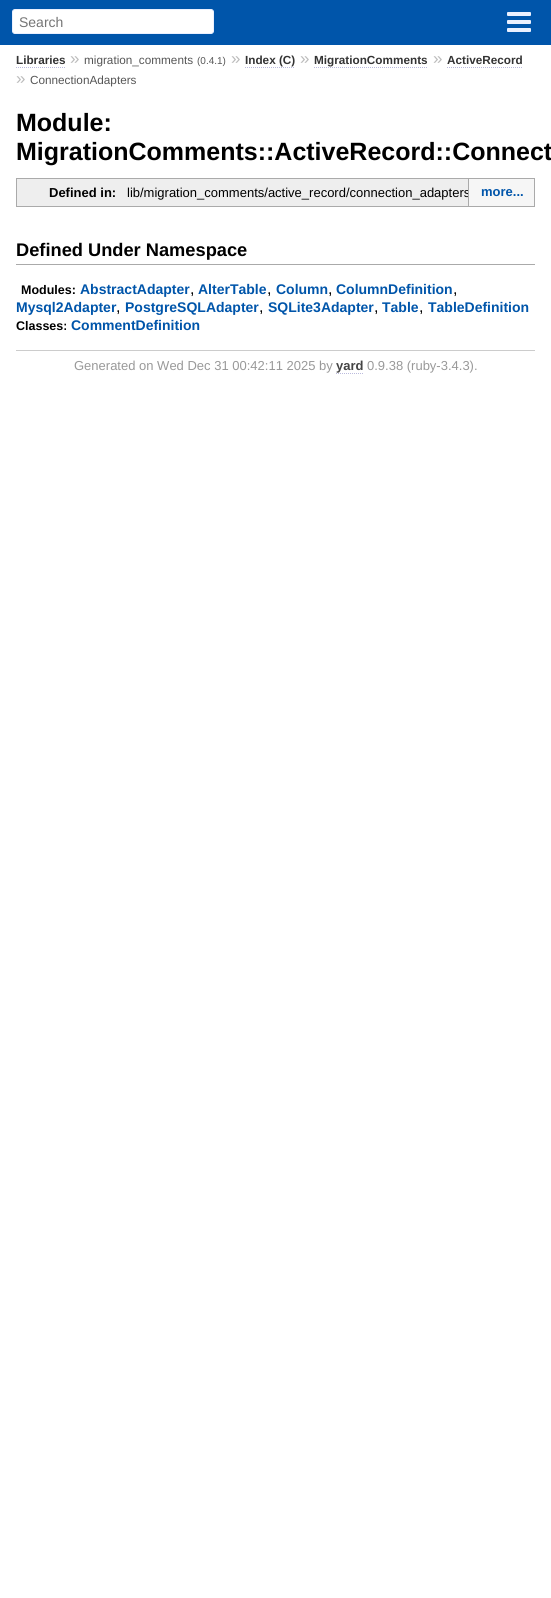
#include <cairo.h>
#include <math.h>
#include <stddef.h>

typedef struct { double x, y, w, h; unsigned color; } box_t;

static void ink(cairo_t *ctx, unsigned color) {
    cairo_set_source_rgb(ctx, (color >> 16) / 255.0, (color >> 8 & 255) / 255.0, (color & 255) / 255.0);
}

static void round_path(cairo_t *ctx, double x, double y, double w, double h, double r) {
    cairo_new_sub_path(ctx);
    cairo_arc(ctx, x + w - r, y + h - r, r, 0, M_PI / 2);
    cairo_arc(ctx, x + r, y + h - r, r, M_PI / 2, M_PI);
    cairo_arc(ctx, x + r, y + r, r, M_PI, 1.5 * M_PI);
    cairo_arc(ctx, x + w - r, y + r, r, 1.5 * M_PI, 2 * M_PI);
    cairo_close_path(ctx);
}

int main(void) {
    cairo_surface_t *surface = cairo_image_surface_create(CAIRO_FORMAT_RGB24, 551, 1598);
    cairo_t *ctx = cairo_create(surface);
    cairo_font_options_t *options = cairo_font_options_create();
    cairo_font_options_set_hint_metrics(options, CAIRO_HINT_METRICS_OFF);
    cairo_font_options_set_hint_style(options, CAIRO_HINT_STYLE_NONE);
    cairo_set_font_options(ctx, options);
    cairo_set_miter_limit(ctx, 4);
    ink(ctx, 0xFFFFFF);
    cairo_paint(ctx);
    ink(ctx, 0x0055AA);
    cairo_rectangle(ctx, 0, 0, 551, 45);
    cairo_fill(ctx);
    ink(ctx, 0xFFFFFF);
    round_path(ctx, 12.5, 9.5, 201, 24, 2.5);
    cairo_fill_preserve(ctx);
    ink(ctx, 0xEAF0FF);
    cairo_set_line_width(ctx, 1);
    cairo_stroke(ctx);
    cairo_select_font_face(ctx, "Liberation Sans", CAIRO_FONT_SLANT_NORMAL, CAIRO_FONT_WEIGHT_NORMAL);
    cairo_set_font_size(ctx, 14);
    ink(ctx, 0x757575);
    cairo_move_to(ctx, 19, 27);
    cairo_show_text(ctx, "Search");
    ink(ctx, 0xEAF0FF);
    round_path(ctx, 507, 12, 24, 4, 1);
    cairo_fill(ctx);
    round_path(ctx, 507, 20, 24, 4, 1);
    cairo_fill(ctx);
    round_path(ctx, 507, 28, 24, 4, 1);
    cairo_fill(ctx);
    cairo_select_font_face(ctx, "Liberation Sans", CAIRO_FONT_SLANT_NORMAL, CAIRO_FONT_WEIGHT_BOLD);
    cairo_set_font_size(ctx, 11.75);
    ink(ctx, 0x333333);
    cairo_move_to(ctx, 16, 64);
    cairo_show_text(ctx, "Libraries");
    cairo_new_path(ctx);
    cairo_move_to(ctx, 16, 67.5);
    cairo_line_to(ctx, 66, 67.5);
    ink(ctx, 0xBBBBDD);
    cairo_set_dash(ctx, (double[]){1, 1}, 2, 0);
    cairo_stroke(ctx);
    cairo_select_font_face(ctx, "Liberation Sans", CAIRO_FONT_SLANT_NORMAL, CAIRO_FONT_WEIGHT_NORMAL);
    cairo_set_font_size(ctx, 17);
    ink(ctx, 0xBBBBBB);
    cairo_move_to(ctx, 70, 64);
    cairo_show_text(ctx, "»");
    cairo_set_font_size(ctx, 11.75);
    ink(ctx, 0x555555);
    cairo_move_to(ctx, 84, 64);
    cairo_show_text(ctx, "migration_comments");
    cairo_set_font_size(ctx, 10);
    cairo_move_to(ctx, 197, 64);
    cairo_show_text(ctx, "(0.4.1)");
    cairo_set_font_size(ctx, 17);
    ink(ctx, 0xBBBBBB);
    cairo_move_to(ctx, 231, 64);
    cairo_show_text(ctx, "»");
    cairo_select_font_face(ctx, "Liberation Sans", CAIRO_FONT_SLANT_NORMAL, CAIRO_FONT_WEIGHT_BOLD);
    cairo_set_font_size(ctx, 11.75);
    ink(ctx, 0x333333);
    cairo_move_to(ctx, 245, 64);
    cairo_show_text(ctx, "Index (C)");
    cairo_new_path(ctx);
    cairo_move_to(ctx, 245, 67.5);
    cairo_line_to(ctx, 295, 67.5);
    ink(ctx, 0xBBBBDD);
    cairo_stroke(ctx);
    cairo_select_font_face(ctx, "Liberation Sans", CAIRO_FONT_SLANT_NORMAL, CAIRO_FONT_WEIGHT_NORMAL);
    cairo_set_font_size(ctx, 17);
    ink(ctx, 0xBBBBBB);
    cairo_move_to(ctx, 300, 64);
    cairo_show_text(ctx, "»");
    cairo_select_font_face(ctx, "Liberation Sans", CAIRO_FONT_SLANT_NORMAL, CAIRO_FONT_WEIGHT_BOLD);
    cairo_set_font_size(ctx, 11.75);
    ink(ctx, 0x333333);
    cairo_move_to(ctx, 314, 64);
    cairo_show_text(ctx, "MigrationComments");
    cairo_new_path(ctx);
    cairo_move_to(ctx, 314, 67.5);
    cairo_line_to(ctx, 428, 67.5);
    ink(ctx, 0xBBBBDD);
    cairo_stroke(ctx);
    cairo_select_font_face(ctx, "Liberation Sans", CAIRO_FONT_SLANT_NORMAL, CAIRO_FONT_WEIGHT_NORMAL);
    cairo_set_font_size(ctx, 17);
    ink(ctx, 0xBBBBBB);
    cairo_move_to(ctx, 433, 64);
    cairo_show_text(ctx, "»");
    cairo_select_font_face(ctx, "Liberation Sans", CAIRO_FONT_SLANT_NORMAL, CAIRO_FONT_WEIGHT_BOLD);
    cairo_set_font_size(ctx, 11.75);
    ink(ctx, 0x333333);
    cairo_move_to(ctx, 447, 64);
    cairo_show_text(ctx, "ActiveRecord");
    cairo_new_path(ctx);
    cairo_move_to(ctx, 447, 67.5);
    cairo_line_to(ctx, 523, 67.5);
    ink(ctx, 0xBBBBDD);
    cairo_stroke(ctx);
    cairo_select_font_face(ctx, "Liberation Sans", CAIRO_FONT_SLANT_NORMAL, CAIRO_FONT_WEIGHT_NORMAL);
    cairo_set_font_size(ctx, 17);
    ink(ctx, 0xBBBBBB);
    cairo_move_to(ctx, 16, 84);
    cairo_show_text(ctx, "»");
    cairo_set_font_size(ctx, 11.75);
    ink(ctx, 0x555555);
    cairo_move_to(ctx, 30, 84);
    cairo_show_text(ctx, "ConnectionAdapters");
    cairo_select_font_face(ctx, "Liberation Sans", CAIRO_FONT_SLANT_NORMAL, CAIRO_FONT_WEIGHT_BOLD);
    cairo_set_font_size(ctx, 25);
    ink(ctx, 0x000000);
    cairo_move_to(ctx, 16, 131);
    cairo_show_text(ctx, "Module:");
    cairo_move_to(ctx, 16, 160);
    cairo_show_text(ctx, "MigrationComments::ActiveRecord::Connect");
    {
        static const box_t items[] = {
            {17, 179, 451, 27, 0xEEEEEE},
            {16, 178, 519, 1, 0xAAAAAA},
            {16, 206, 111, 1, 0xAAAAAA},
            {16, 178, 1, 29, 0xAAAAAA},
        };
        for (size_t i = 0; i < sizeof items / sizeof *items; i++) {
            ink(ctx, items[i].color);
            cairo_rectangle(ctx, items[i].x, items[i].y, items[i].w, items[i].h);
            cairo_fill(ctx);
        }
    }
    cairo_set_font_size(ctx, 13);
    ink(ctx, 0x000000);
    cairo_move_to(ctx, 49, 197);
    cairo_show_text(ctx, "Defined in:");
    ink(ctx, 0xAAAAAA);
    cairo_rectangle(ctx, 534, 178, 1, 29);
    cairo_fill(ctx);
    cairo_rectangle(ctx, 127, 206, 408, 1);
    cairo_fill(ctx);
    cairo_select_font_face(ctx, "Liberation Sans", CAIRO_FONT_SLANT_NORMAL, CAIRO_FONT_WEIGHT_NORMAL);
    ink(ctx, 0x000000);
    cairo_move_to(ctx, 127, 197);
    cairo_show_text(ctx, "lib/migration_comments/active_record/connection_adapters");
    ink(ctx, 0xF6F6F6);
    cairo_rectangle(ctx, 469, 179, 65, 27);
    cairo_fill(ctx);
    ink(ctx, 0xAAAAAA);
    cairo_rectangle(ctx, 468, 179, 1, 27);
    cairo_fill(ctx);
    cairo_select_font_face(ctx, "Liberation Sans", CAIRO_FONT_SLANT_NORMAL, CAIRO_FONT_WEIGHT_BOLD);
    ink(ctx, 0x0055AA);
    cairo_move_to(ctx, 481, 196);
    cairo_show_text(ctx, "more...");
    ink(ctx, 0xAAAAAA);
    cairo_rectangle(ctx, 16, 264, 519, 1);
    cairo_fill(ctx);
    cairo_set_font_size(ctx, 18.25);
    ink(ctx, 0x000000);
    cairo_move_to(ctx, 16, 256);
    cairo_show_text(ctx, "Defined Under Namespace");
    cairo_set_font_size(ctx, 12.5);
    cairo_move_to(ctx, 21, 294);
    cairo_show_text(ctx, "Modules:");
    cairo_set_font_size(ctx, 14);
    ink(ctx, 0x0055AA);
    cairo_move_to(ctx, 80, 294);
    cairo_show_text(ctx, "AbstractAdapter");
    cairo_select_font_face(ctx, "Liberation Sans", CAIRO_FONT_SLANT_NORMAL, CAIRO_FONT_WEIGHT_NORMAL);
    cairo_set_font_size(ctx, 16);
    ink(ctx, 0x000000);
    cairo_move_to(ctx, 190, 294);
    cairo_show_text(ctx, ",");
    cairo_select_font_face(ctx, "Liberation Sans", CAIRO_FONT_SLANT_NORMAL, CAIRO_FONT_WEIGHT_BOLD);
    cairo_set_font_size(ctx, 14);
    ink(ctx, 0x0055AA);
    cairo_move_to(ctx, 198, 294);
    cairo_show_text(ctx, "AlterTable");
    cairo_select_font_face(ctx, "Liberation Sans", CAIRO_FONT_SLANT_NORMAL, CAIRO_FONT_WEIGHT_NORMAL);
    cairo_set_font_size(ctx, 16);
    ink(ctx, 0x000000);
    cairo_move_to(ctx, 267, 294);
    cairo_show_text(ctx, ",");
    cairo_select_font_face(ctx, "Liberation Sans", CAIRO_FONT_SLANT_NORMAL, CAIRO_FONT_WEIGHT_BOLD);
    cairo_set_font_size(ctx, 14);
    ink(ctx, 0x0055AA);
    cairo_move_to(ctx, 276, 294);
    cairo_show_text(ctx, "Column");
    cairo_select_font_face(ctx, "Liberation Sans", CAIRO_FONT_SLANT_NORMAL, CAIRO_FONT_WEIGHT_NORMAL);
    cairo_set_font_size(ctx, 16);
    ink(ctx, 0x000000);
    cairo_move_to(ctx, 328, 294);
    cairo_show_text(ctx, ",");
    cairo_select_font_face(ctx, "Liberation Sans", CAIRO_FONT_SLANT_NORMAL, CAIRO_FONT_WEIGHT_BOLD);
    cairo_set_font_size(ctx, 14);
    ink(ctx, 0x0055AA);
    cairo_move_to(ctx, 336, 294);
    cairo_show_text(ctx, "ColumnDefinition");
    cairo_select_font_face(ctx, "Liberation Sans", CAIRO_FONT_SLANT_NORMAL, CAIRO_FONT_WEIGHT_NORMAL);
    cairo_set_font_size(ctx, 16);
    ink(ctx, 0x000000);
    cairo_move_to(ctx, 453, 294);
    cairo_show_text(ctx, ",");
    cairo_select_font_face(ctx, "Liberation Sans", CAIRO_FONT_SLANT_NORMAL, CAIRO_FONT_WEIGHT_BOLD);
    cairo_set_font_size(ctx, 14);
    ink(ctx, 0x0055AA);
    cairo_move_to(ctx, 16, 312);
    cairo_show_text(ctx, "Mysql2Adapter");
    cairo_select_font_face(ctx, "Liberation Sans", CAIRO_FONT_SLANT_NORMAL, CAIRO_FONT_WEIGHT_NORMAL);
    cairo_set_font_size(ctx, 16);
    ink(ctx, 0x000000);
    cairo_move_to(ctx, 116, 312);
    cairo_show_text(ctx, ",");
    cairo_select_font_face(ctx, "Liberation Sans", CAIRO_FONT_SLANT_NORMAL, CAIRO_FONT_WEIGHT_BOLD);
    cairo_set_font_size(ctx, 14);
    ink(ctx, 0x0055AA);
    cairo_move_to(ctx, 125, 312);
    cairo_show_text(ctx, "PostgreSQLAdapter");
    cairo_select_font_face(ctx, "Liberation Sans", CAIRO_FONT_SLANT_NORMAL, CAIRO_FONT_WEIGHT_NORMAL);
    cairo_set_font_size(ctx, 16);
    ink(ctx, 0x000000);
    cairo_move_to(ctx, 259, 312);
    cairo_show_text(ctx, ",");
    cairo_select_font_face(ctx, "Liberation Sans", CAIRO_FONT_SLANT_NORMAL, CAIRO_FONT_WEIGHT_BOLD);
    cairo_set_font_size(ctx, 14);
    ink(ctx, 0x0055AA);
    cairo_move_to(ctx, 268, 312);
    cairo_show_text(ctx, "SQLite3Adapter");
    cairo_select_font_face(ctx, "Liberation Sans", CAIRO_FONT_SLANT_NORMAL, CAIRO_FONT_WEIGHT_NORMAL);
    cairo_set_font_size(ctx, 16);
    ink(ctx, 0x000000);
    cairo_move_to(ctx, 374, 312);
    cairo_show_text(ctx, ",");
    cairo_select_font_face(ctx, "Liberation Sans", CAIRO_FONT_SLANT_NORMAL, CAIRO_FONT_WEIGHT_BOLD);
    cairo_set_font_size(ctx, 14);
    ink(ctx, 0x0055AA);
    cairo_move_to(ctx, 382, 312);
    cairo_show_text(ctx, "Table");
    cairo_select_font_face(ctx, "Liberation Sans", CAIRO_FONT_SLANT_NORMAL, CAIRO_FONT_WEIGHT_NORMAL);
    cairo_set_font_size(ctx, 16);
    ink(ctx, 0x000000);
    cairo_move_to(ctx, 419, 312);
    cairo_show_text(ctx, ",");
    cairo_select_font_face(ctx, "Liberation Sans", CAIRO_FONT_SLANT_NORMAL, CAIRO_FONT_WEIGHT_BOLD);
    cairo_set_font_size(ctx, 14);
    ink(ctx, 0x0055AA);
    cairo_move_to(ctx, 428, 312);
    cairo_show_text(ctx, "TableDefinition");
    cairo_set_font_size(ctx, 12.5);
    ink(ctx, 0x000000);
    cairo_move_to(ctx, 16, 330);
    cairo_show_text(ctx, "Classes:");
    cairo_set_font_size(ctx, 14);
    ink(ctx, 0x0055AA);
    cairo_move_to(ctx, 71, 330);
    cairo_show_text(ctx, "CommentDefinition");
    ink(ctx, 0xCCCCCC);
    cairo_rectangle(ctx, 16, 350, 519, 1);
    cairo_fill(ctx);
    cairo_select_font_face(ctx, "Liberation Sans", CAIRO_FONT_SLANT_NORMAL, CAIRO_FONT_WEIGHT_NORMAL);
    cairo_set_font_size(ctx, 13);
    ink(ctx, 0x999999);
    cairo_move_to(ctx, 74, 370);
    cairo_show_text(ctx, "Generated on Wed Dec 31 00:42:11 2025 by");
    cairo_select_font_face(ctx, "Liberation Sans", CAIRO_FONT_SLANT_NORMAL, CAIRO_FONT_WEIGHT_BOLD);
    ink(ctx, 0x444444);
    cairo_move_to(ctx, 336, 370);
    cairo_show_text(ctx, "yard");
    cairo_new_path(ctx);
    cairo_move_to(ctx, 336, 373.5);
    cairo_line_to(ctx, 363, 373.5);
    ink(ctx, 0xBBBBDD);
    cairo_stroke(ctx);
    cairo_select_font_face(ctx, "Liberation Sans", CAIRO_FONT_SLANT_NORMAL, CAIRO_FONT_WEIGHT_NORMAL);
    ink(ctx, 0x999999);
    cairo_move_to(ctx, 367, 370);
    cairo_show_text(ctx, "0.9.38 (ruby-3.4.3).");
    cairo_surface_write_to_png(surface, "image.png");
    cairo_font_options_destroy(options);
    cairo_destroy(ctx);
    cairo_surface_destroy(surface);
    return 0;
}
